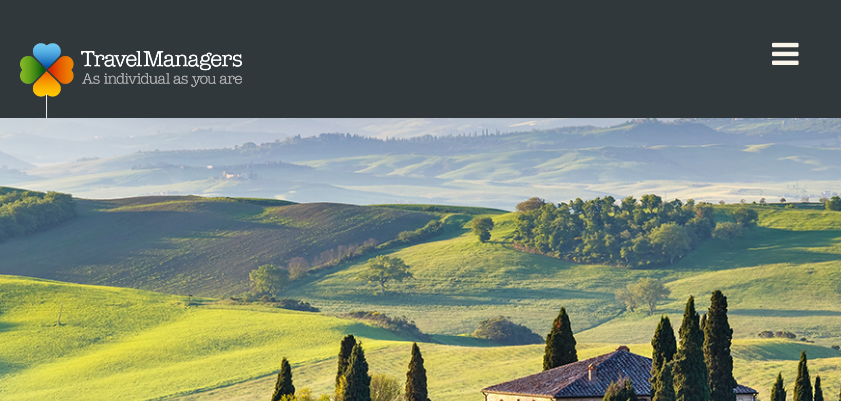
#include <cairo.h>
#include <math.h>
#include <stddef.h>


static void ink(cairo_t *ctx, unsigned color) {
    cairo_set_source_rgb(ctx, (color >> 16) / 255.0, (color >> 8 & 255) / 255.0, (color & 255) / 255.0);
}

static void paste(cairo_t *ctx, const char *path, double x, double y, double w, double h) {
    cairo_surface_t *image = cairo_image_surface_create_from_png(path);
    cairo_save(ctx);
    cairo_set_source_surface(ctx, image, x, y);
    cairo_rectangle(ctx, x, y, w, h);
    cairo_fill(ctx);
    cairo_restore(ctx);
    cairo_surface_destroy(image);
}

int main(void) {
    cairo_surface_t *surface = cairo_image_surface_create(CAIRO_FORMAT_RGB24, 841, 401);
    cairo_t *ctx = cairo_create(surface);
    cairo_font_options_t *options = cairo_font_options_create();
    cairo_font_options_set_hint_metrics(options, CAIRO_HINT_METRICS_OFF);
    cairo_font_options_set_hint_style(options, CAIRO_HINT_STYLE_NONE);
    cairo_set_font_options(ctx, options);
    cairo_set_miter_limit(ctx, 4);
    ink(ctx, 0xFFFFFF);
    cairo_paint(ctx);
    ink(ctx, 0x30383B);
    cairo_rectangle(ctx, 0, 0, 841, 118);
    cairo_fill(ctx);
    paste(ctx, "media/1.png", 20, 43, 222, 75);
    paste(ctx, "media/2.png", 772, 42, 27, 23);
    paste(ctx, "media/3.png", 0, 118, 841, 283);
    cairo_surface_write_to_png(surface, "image.png");
    cairo_font_options_destroy(options);
    cairo_destroy(ctx);
    cairo_surface_destroy(surface);
    return 0;
}
